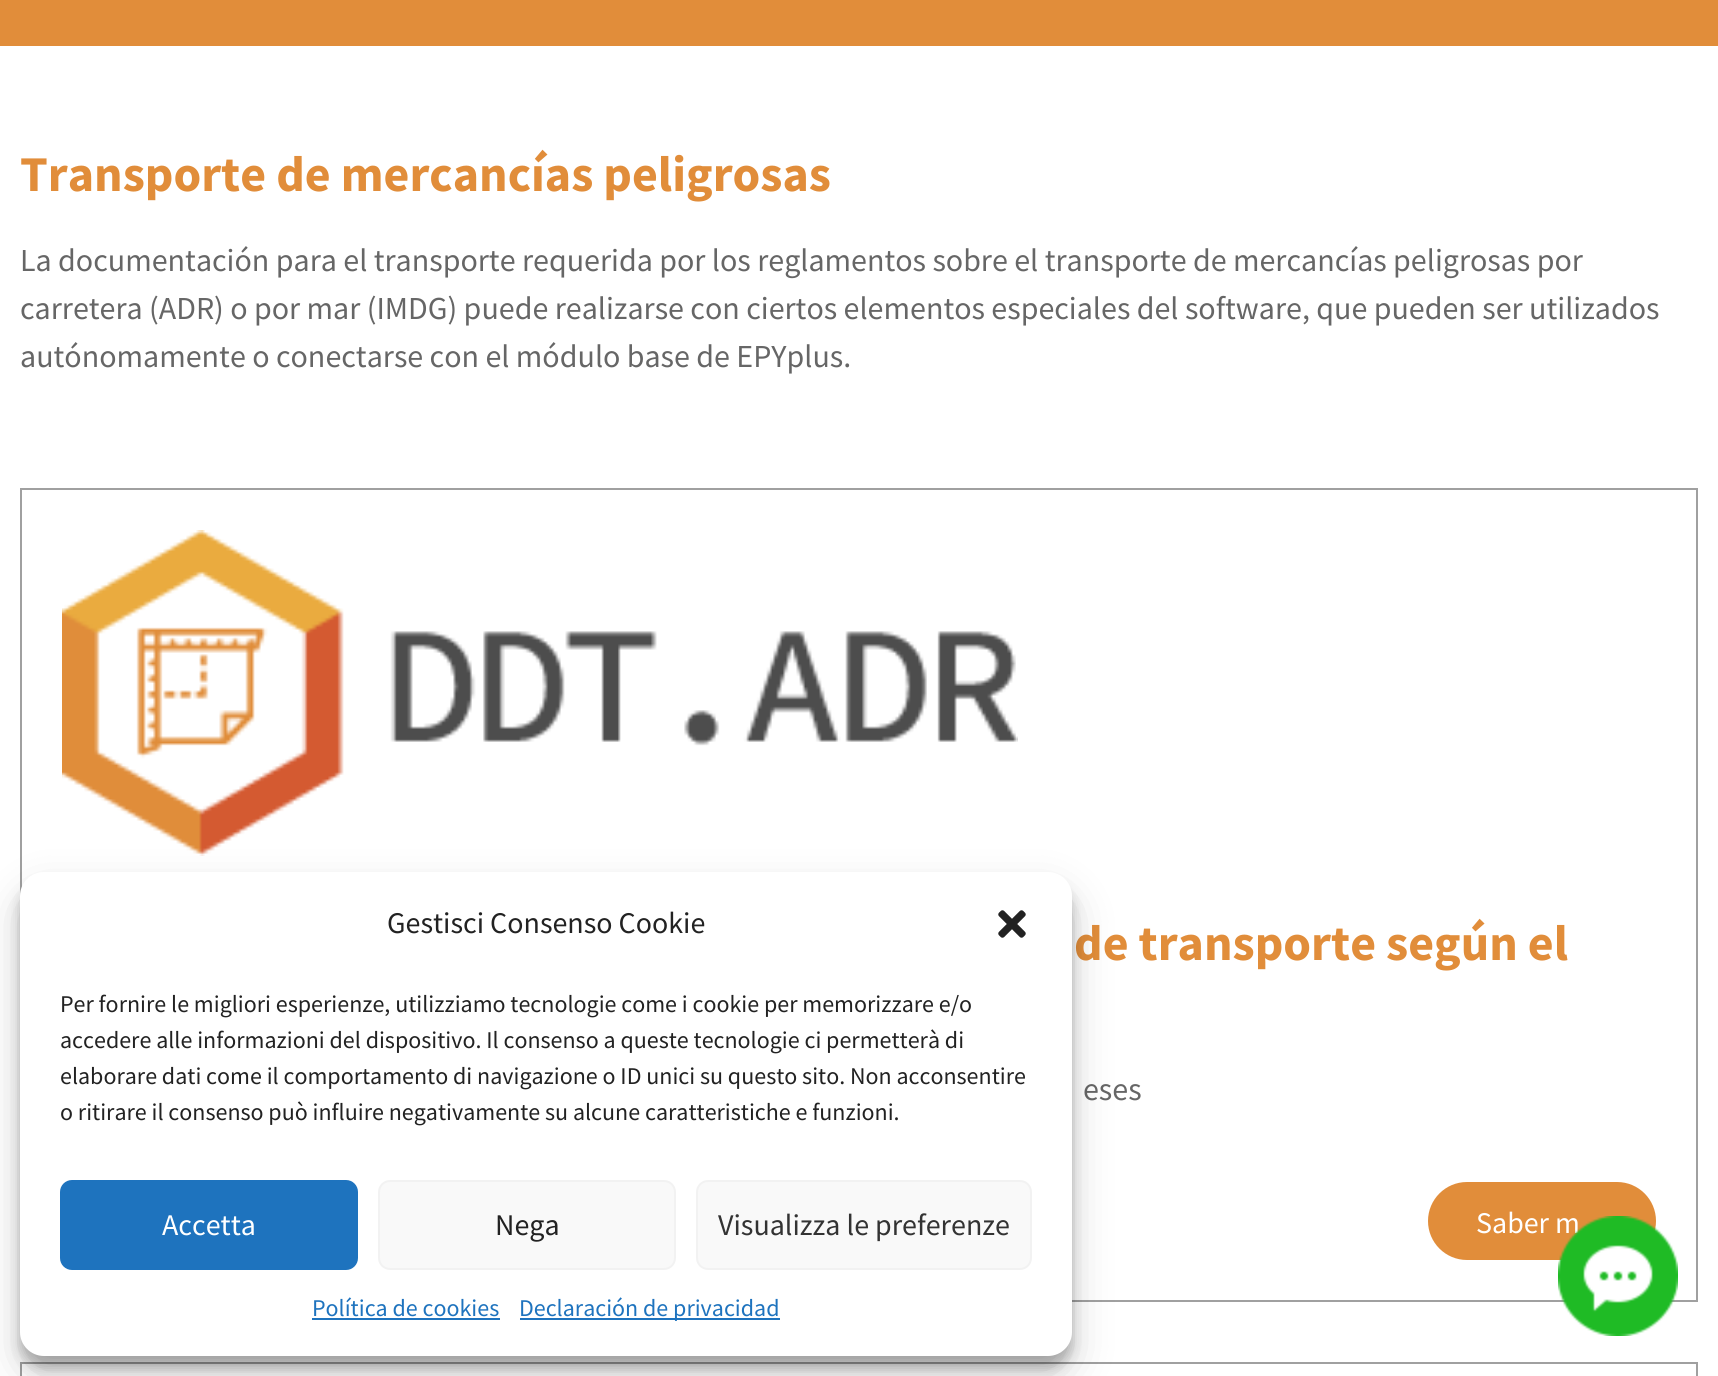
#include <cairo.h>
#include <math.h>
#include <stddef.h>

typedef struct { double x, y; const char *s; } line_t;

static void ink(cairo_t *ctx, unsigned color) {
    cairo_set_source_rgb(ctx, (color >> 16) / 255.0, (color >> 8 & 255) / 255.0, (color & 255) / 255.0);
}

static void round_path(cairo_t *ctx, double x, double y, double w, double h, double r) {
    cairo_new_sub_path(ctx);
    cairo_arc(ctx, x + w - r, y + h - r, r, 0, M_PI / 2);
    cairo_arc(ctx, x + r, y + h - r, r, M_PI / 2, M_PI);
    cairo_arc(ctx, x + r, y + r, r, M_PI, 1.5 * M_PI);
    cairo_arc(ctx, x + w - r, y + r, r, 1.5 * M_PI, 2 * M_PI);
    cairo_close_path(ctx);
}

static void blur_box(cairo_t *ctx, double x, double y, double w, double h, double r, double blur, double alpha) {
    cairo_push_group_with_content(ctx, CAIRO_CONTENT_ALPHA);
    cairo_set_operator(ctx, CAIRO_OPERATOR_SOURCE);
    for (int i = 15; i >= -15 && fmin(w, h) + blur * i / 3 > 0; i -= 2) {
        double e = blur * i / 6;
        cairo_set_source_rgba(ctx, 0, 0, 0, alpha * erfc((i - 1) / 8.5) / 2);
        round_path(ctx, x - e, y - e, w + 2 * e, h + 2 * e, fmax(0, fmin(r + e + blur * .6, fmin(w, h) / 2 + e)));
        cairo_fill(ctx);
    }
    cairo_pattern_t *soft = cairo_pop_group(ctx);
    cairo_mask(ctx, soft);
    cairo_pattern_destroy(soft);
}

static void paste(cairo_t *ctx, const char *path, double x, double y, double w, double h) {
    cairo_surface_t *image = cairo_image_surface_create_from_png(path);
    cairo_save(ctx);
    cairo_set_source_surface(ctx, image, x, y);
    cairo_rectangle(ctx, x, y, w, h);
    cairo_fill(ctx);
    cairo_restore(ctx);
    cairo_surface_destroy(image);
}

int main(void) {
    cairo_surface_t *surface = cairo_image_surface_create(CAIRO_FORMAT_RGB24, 1718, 1376);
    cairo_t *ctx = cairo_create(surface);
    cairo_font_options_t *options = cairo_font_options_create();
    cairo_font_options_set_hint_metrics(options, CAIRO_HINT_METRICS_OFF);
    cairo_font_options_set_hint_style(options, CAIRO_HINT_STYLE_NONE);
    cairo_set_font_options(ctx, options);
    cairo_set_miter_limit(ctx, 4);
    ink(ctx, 0xFFFFFF);
    cairo_paint(ctx);
    ink(ctx, 0xE18D3A);
    cairo_rectangle(ctx, 0, 0, 1718, 46);
    cairo_fill(ctx);
    cairo_select_font_face(ctx, "Source Sans Pro", CAIRO_FONT_SLANT_NORMAL, CAIRO_FONT_WEIGHT_BOLD);
    cairo_set_font_size(ctx, 50);
    cairo_move_to(ctx, 20, 191);
    cairo_show_text(ctx, "Transporte de mercancías peligrosas");
    cairo_select_font_face(ctx, "Source Sans Pro", CAIRO_FONT_SLANT_NORMAL, CAIRO_FONT_WEIGHT_NORMAL);
    cairo_set_font_size(ctx, 32);
    ink(ctx, 0x666666);
    {
        static const line_t items[] = {
            {20, 271, "La documentación para el transporte requerida por los reglamentos sobre el transporte de mercancías peligrosas por"},
            {20, 319, "carretera (ADR) o por mar (IMDG) puede realizarse con ciertos elementos especiales del software, que pueden ser utilizados"},
            {20, 367, "autónomamente o conectarse con el módulo base de EPYplus."},
        };
        for (size_t i = 0; i < sizeof items / sizeof *items; i++) {
            cairo_move_to(ctx, items[i].x, items[i].y);
            cairo_show_text(ctx, items[i].s);
        }
    }
    cairo_rectangle(ctx, 21, 489, 1676, 812);
    ink(ctx, 0xA0A0A0);
    cairo_stroke(ctx);
    paste(ctx, "media/1.png", 62, 530, 956, 326);
    cairo_select_font_face(ctx, "Source Sans Pro", CAIRO_FONT_SLANT_NORMAL, CAIRO_FONT_WEIGHT_BOLD);
    cairo_set_font_size(ctx, 50);
    ink(ctx, 0xE18D3A);
    cairo_move_to(ctx, 1074, 960);
    cairo_show_text(ctx, "de transporte según el");
    cairo_select_font_face(ctx, "Source Sans Pro", CAIRO_FONT_SLANT_NORMAL, CAIRO_FONT_WEIGHT_NORMAL);
    cairo_set_font_size(ctx, 32);
    ink(ctx, 0x666666);
    cairo_move_to(ctx, 1083, 1100);
    cairo_show_text(ctx, "eses");
    ink(ctx, 0xE18D3A);
    round_path(ctx, 1428, 1182, 228, 78, 39);
    cairo_fill(ctx);
    cairo_set_font_size(ctx, 30);
    ink(ctx, 0xFFFFFF);
    cairo_move_to(ctx, 1476, 1233);
    cairo_show_text(ctx, "Saber m");
    cairo_rectangle(ctx, 21, 1363, 1676, 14);
    ink(ctx, 0xA0A0A0);
    cairo_stroke(ctx);
    ink(ctx, 0x000000);
    blur_box(ctx, 20, 884, 1052, 484, 24, 6, 0.23);
    blur_box(ctx, 20, 892, 1052, 484, 24, 20, 0.19);
    ink(ctx, 0xFFFFFF);
    round_path(ctx, 20, 872, 1052, 484, 24);
    cairo_fill(ctx);
    ink(ctx, 0x222222);
    cairo_move_to(ctx, 387, 933);
    cairo_show_text(ctx, "Gestisci Consenso Cookie");
    paste(ctx, "media/2.png", 998, 910, 28, 28);
    cairo_set_font_size(ctx, 24);
    {
        static const line_t items[] = {
            {60, 1012, "Per fornire le migliori esperienze, utilizziamo tecnologie come i cookie per memorizzare e/o"},
            {60, 1048, "accedere alle informazioni del dispositivo. Il consenso a queste tecnologie ci permetterà di"},
            {60, 1084, "elaborare dati come il comportamento di navigazione o ID unici su questo sito. Non acconsentire"},
            {60, 1120, "o ritirare il consenso può influire negativamente su alcune caratteristiche e funzioni."},
        };
        for (size_t i = 0; i < sizeof items / sizeof *items; i++) {
            cairo_move_to(ctx, items[i].x, items[i].y);
            cairo_show_text(ctx, items[i].s);
        }
    }
    ink(ctx, 0x1E73BE);
    round_path(ctx, 61, 1181, 296, 88, 11);
    cairo_fill_preserve(ctx);
    cairo_stroke(ctx);
    cairo_set_font_size(ctx, 30);
    ink(ctx, 0xFFFFFF);
    cairo_move_to(ctx, 162, 1235);
    cairo_show_text(ctx, "Accetta");
    ink(ctx, 0xF9F9F9);
    round_path(ctx, 379, 1181, 296, 88, 11);
    cairo_fill_preserve(ctx);
    ink(ctx, 0xF2F2F2);
    cairo_stroke(ctx);
    ink(ctx, 0x222222);
    cairo_move_to(ctx, 495, 1235);
    cairo_show_text(ctx, "Nega");
    ink(ctx, 0xF9F9F9);
    round_path(ctx, 697, 1181, 334, 88, 11);
    cairo_fill_preserve(ctx);
    ink(ctx, 0xF2F2F2);
    cairo_stroke(ctx);
    ink(ctx, 0x333333);
    cairo_move_to(ctx, 718, 1235);
    cairo_show_text(ctx, "Visualizza le preferenze");
    cairo_set_font_size(ctx, 24);
    ink(ctx, 0x1E73BE);
    cairo_move_to(ctx, 312, 1316);
    cairo_show_text(ctx, "Política de cookies");
    cairo_rectangle(ctx, 312, 1318, 188, 2);
    cairo_fill(ctx);
    cairo_rectangle(ctx, 520, 1318, 260, 2);
    cairo_fill(ctx);
    cairo_move_to(ctx, 519, 1316);
    cairo_show_text(ctx, "Declaración de privacidad");
    paste(ctx, "media/3.png", 1558, 1216, 120, 120);
    cairo_surface_write_to_png(surface, "image.png");
    cairo_font_options_destroy(options);
    cairo_destroy(ctx);
    cairo_surface_destroy(surface);
    return 0;
}
